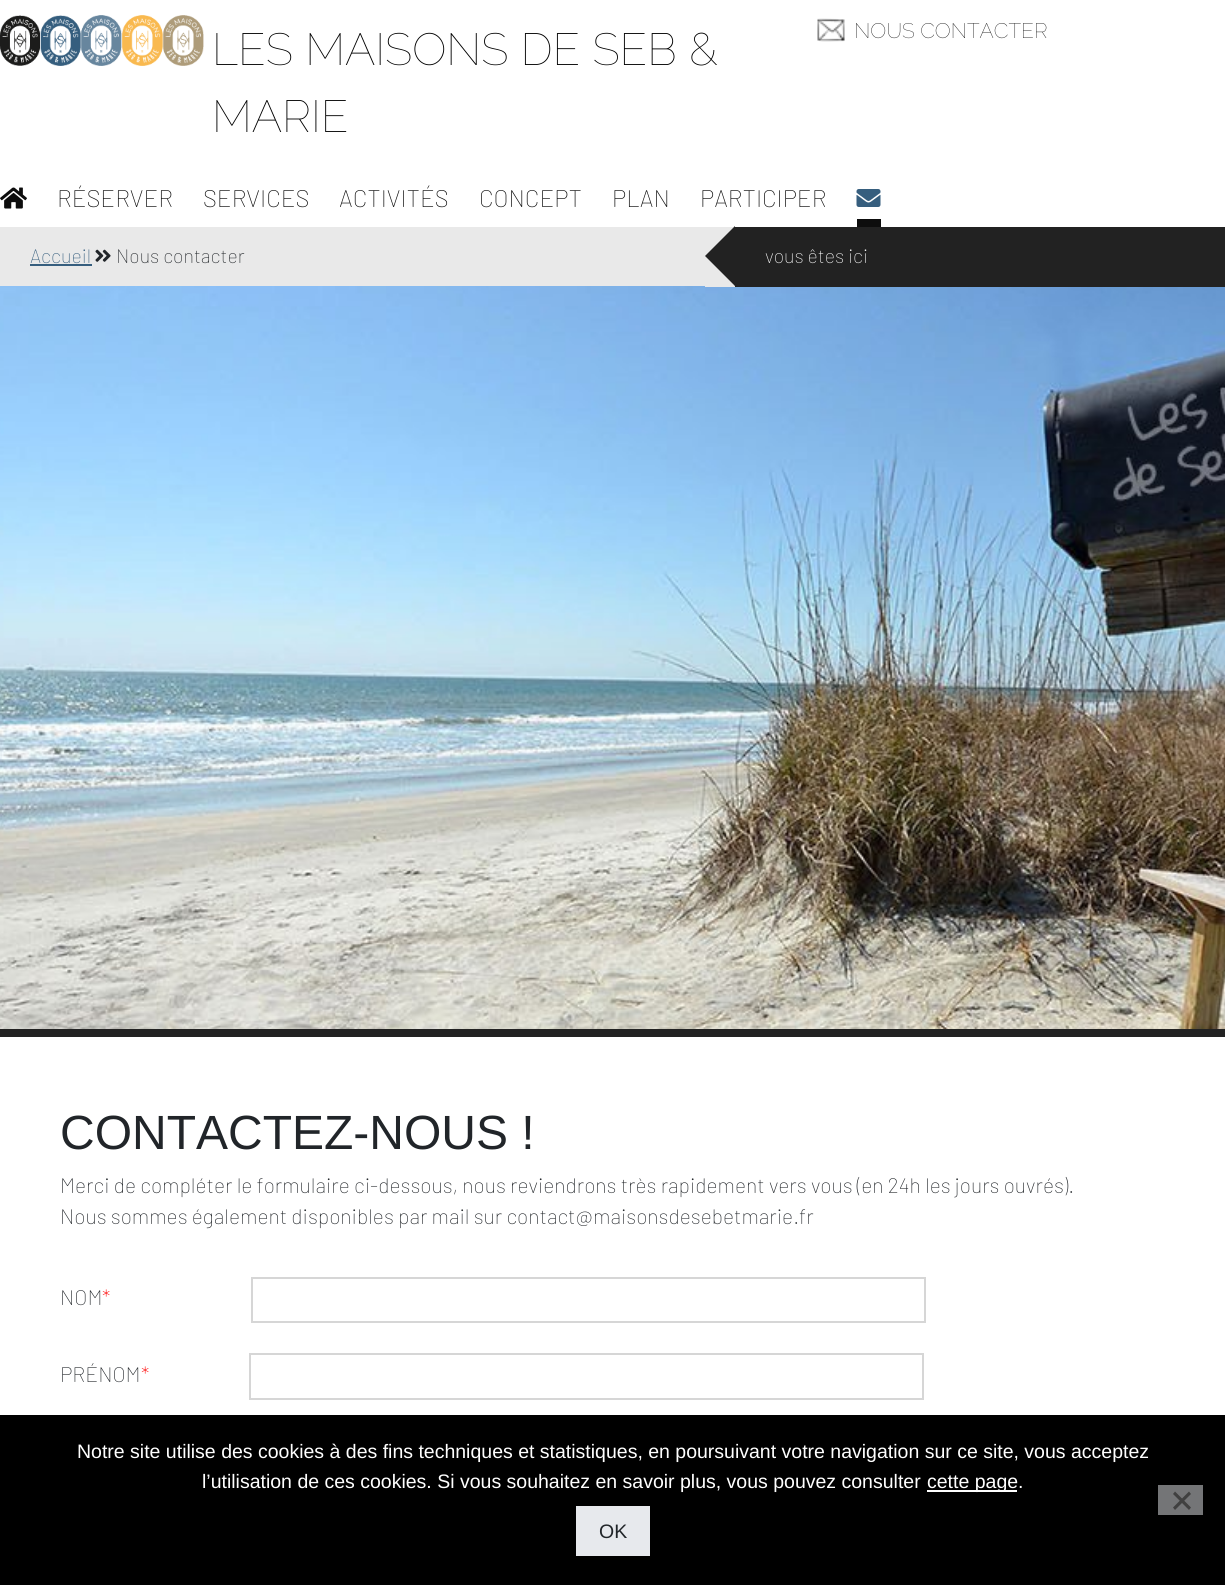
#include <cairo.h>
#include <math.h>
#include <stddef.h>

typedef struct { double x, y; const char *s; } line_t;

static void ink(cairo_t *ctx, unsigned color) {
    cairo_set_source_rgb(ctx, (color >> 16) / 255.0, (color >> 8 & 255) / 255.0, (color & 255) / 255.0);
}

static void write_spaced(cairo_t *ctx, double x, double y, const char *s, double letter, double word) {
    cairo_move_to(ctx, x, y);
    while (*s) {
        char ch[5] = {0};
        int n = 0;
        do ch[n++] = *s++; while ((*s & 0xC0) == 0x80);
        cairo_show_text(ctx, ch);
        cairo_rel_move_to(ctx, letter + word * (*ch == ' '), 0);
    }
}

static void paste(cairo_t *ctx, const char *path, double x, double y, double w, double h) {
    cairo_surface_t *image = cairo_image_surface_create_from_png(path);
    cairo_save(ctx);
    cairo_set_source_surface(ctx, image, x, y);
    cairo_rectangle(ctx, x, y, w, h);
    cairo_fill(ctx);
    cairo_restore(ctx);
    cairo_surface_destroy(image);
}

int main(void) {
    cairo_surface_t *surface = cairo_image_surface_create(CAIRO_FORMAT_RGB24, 1225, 1585);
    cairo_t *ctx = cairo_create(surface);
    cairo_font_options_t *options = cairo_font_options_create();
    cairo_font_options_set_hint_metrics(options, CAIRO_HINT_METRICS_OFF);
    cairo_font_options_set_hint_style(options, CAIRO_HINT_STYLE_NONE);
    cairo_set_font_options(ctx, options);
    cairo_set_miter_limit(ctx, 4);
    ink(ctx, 0xFFFFFF);
    cairo_paint(ctx);
    paste(ctx, "media/1.png", 0, 15, 204, 51);
    cairo_select_font_face(ctx, "Raleway Thin", CAIRO_FONT_SLANT_NORMAL, CAIRO_FONT_WEIGHT_NORMAL);
    cairo_set_font_size(ctx, 45);
    ink(ctx, 0x000000);
    write_spaced(ctx, 212, 65, "LES MAISONS DE SEB &", 0, 0.5);
    cairo_move_to(ctx, 212, 132);
    cairo_show_text(ctx, "MARIE");
    paste(ctx, "media/2.png", 817, 18, 28, 24);
    cairo_set_font_size(ctx, 21);
    ink(ctx, 0x0D0D0D);
    cairo_move_to(ctx, 854, 38);
    cairo_show_text(ctx, "NOUS CONTACTER");
    paste(ctx, "media/3.png", 0, 187, 27, 22);
    cairo_select_font_face(ctx, "Barlow ExtraLight", CAIRO_FONT_SLANT_NORMAL, CAIRO_FONT_WEIGHT_NORMAL);
    cairo_set_font_size(ctx, 24);
    {
        static const line_t items[] = {
            {57, 207, "RÉSERVER"},
            {203, 207, "SERVICES"},
            {339, 207, "ACTIVITÉS"},
            {479, 207, "CONCEPT"},
            {612, 207, "PLAN"},
            {700, 207, "PARTICIPER"},
        };
        for (size_t i = 0; i < sizeof items / sizeof *items; i++) {
            cairo_move_to(ctx, items[i].x, items[i].y);
            cairo_show_text(ctx, items[i].s);
        }
    }
    cairo_rectangle(ctx, 857, 219, 24, 8);
    cairo_fill(ctx);
    paste(ctx, "media/4.png", 856, 189, 25, 18);
    ink(ctx, 0xE9E9E9);
    cairo_rectangle(ctx, 0, 227, 705, 59);
    cairo_fill(ctx);
    cairo_set_font_size(ctx, 19.5);
    ink(ctx, 0x365E7E);
    cairo_move_to(ctx, 30, 263);
    cairo_show_text(ctx, "Accueil");
    cairo_rectangle(ctx, 30, 264, 62, 2);
    cairo_fill(ctx);
    paste(ctx, "media/5.png", 95, 249, 16, 13);
    ink(ctx, 0x212529);
    cairo_move_to(ctx, 116, 263);
    cairo_show_text(ctx, "Nous contacter");
    paste(ctx, "media/6.png", 0, 286, 1225, 743);
    ink(ctx, 0xE9E9E9);
    cairo_rectangle(ctx, 705, 227, 30, 60);
    cairo_fill(ctx);
    ink(ctx, 0x222222);
    cairo_new_path(ctx);
    cairo_move_to(ctx, 735, 226);
    cairo_line_to(ctx, 735, 286);
    cairo_line_to(ctx, 705, 256);
    cairo_close_path(ctx);
    cairo_fill(ctx);
    cairo_rectangle(ctx, 735, 227, 490, 60);
    cairo_fill(ctx);
    ink(ctx, 0xFFFFFF);
    cairo_move_to(ctx, 765, 263);
    cairo_show_text(ctx, "vous êtes ici");
    ink(ctx, 0x222222);
    cairo_rectangle(ctx, 0, 1029, 1225, 8);
    cairo_fill(ctx);
    cairo_select_font_face(ctx, "Liberation Sans", CAIRO_FONT_SLANT_NORMAL, CAIRO_FONT_WEIGHT_NORMAL);
    cairo_set_font_size(ctx, 48);
    ink(ctx, 0x212529);
    cairo_move_to(ctx, 60, 1149);
    cairo_show_text(ctx, "CONTACTEZ-NOUS !");
    cairo_select_font_face(ctx, "Barlow ExtraLight", CAIRO_FONT_SLANT_NORMAL, CAIRO_FONT_WEIGHT_NORMAL);
    cairo_set_font_size(ctx, 21);
    {
        static const line_t items[] = {
            {60, 1193, "Merci de compléter le formulaire ci-dessous, nous reviendrons très rapidement vers vous (en 24h les jours ouvrés)."},
            {60, 1224, "Nous sommes également disponibles par mail sur contact@maisonsdesebetmarie.fr"},
            {60, 1305, "NOM"},
        };
        for (size_t i = 0; i < sizeof items / sizeof *items; i++) {
            cairo_move_to(ctx, items[i].x, items[i].y);
            cairo_show_text(ctx, items[i].s);
        }
    }
    ink(ctx, 0xFF0000);
    cairo_move_to(ctx, 102, 1305);
    cairo_show_text(ctx, "*");
    cairo_rectangle(ctx, 252, 1278, 673, 44);
    ink(ctx, 0xD6D6D6);
    cairo_stroke(ctx);
    ink(ctx, 0x212529);
    cairo_move_to(ctx, 60, 1382);
    cairo_show_text(ctx, "PRÉNOM");
    ink(ctx, 0xFF0000);
    cairo_move_to(ctx, 141, 1382);
    cairo_show_text(ctx, "*");
    cairo_rectangle(ctx, 250, 1354, 673, 45);
    ink(ctx, 0xD6D6D6);
    cairo_stroke(ctx);
    ink(ctx, 0x000000);
    cairo_rectangle(ctx, 0, 1415, 1225, 170);
    cairo_fill(ctx);
    cairo_select_font_face(ctx, "Liberation Sans", CAIRO_FONT_SLANT_NORMAL, CAIRO_FONT_WEIGHT_NORMAL);
    cairo_set_font_size(ctx, 19.5);
    ink(ctx, 0xFFFFFF);
    cairo_move_to(ctx, 77, 1458);
    cairo_show_text(ctx, "Notre site utilise des cookies à des fins techniques et statistiques, en poursuivant votre navigation sur ce site, vous acceptez");
    cairo_move_to(ctx, 202, 1488);
    cairo_show_text(ctx, "l’utilisation de ces cookies. Si vous souhaitez en savoir plus, vous pouvez consulter");
    cairo_rectangle(ctx, 927, 1490, 90, 2);
    cairo_fill(ctx);
    cairo_move_to(ctx, 927, 1488);
    cairo_show_text(ctx, "cette page.");
    ink(ctx, 0x747577);
    cairo_rectangle(ctx, 1158, 1485, 45, 30);
    cairo_fill(ctx);
    ink(ctx, 0x404040);
    cairo_new_path(ctx);
    cairo_move_to(ctx, 1189, 1491.5);
    cairo_line_to(ctx, 1191, 1494);
    cairo_line_to(ctx, 1175, 1510);
    cairo_line_to(ctx, 1173, 1507.5);
    cairo_close_path(ctx);
    cairo_fill(ctx);
    cairo_new_path(ctx);
    cairo_move_to(ctx, 1173, 1494);
    cairo_line_to(ctx, 1175, 1491.5);
    cairo_line_to(ctx, 1191, 1507.5);
    cairo_line_to(ctx, 1189, 1510);
    cairo_close_path(ctx);
    cairo_fill(ctx);
    ink(ctx, 0xE7E9ED);
    cairo_rectangle(ctx, 576, 1506, 74, 50);
    cairo_fill(ctx);
    ink(ctx, 0x212529);
    cairo_move_to(ctx, 599, 1538);
    cairo_show_text(ctx, "OK");
    cairo_surface_write_to_png(surface, "image.png");
    cairo_font_options_destroy(options);
    cairo_destroy(ctx);
    cairo_surface_destroy(surface);
    return 0;
}
